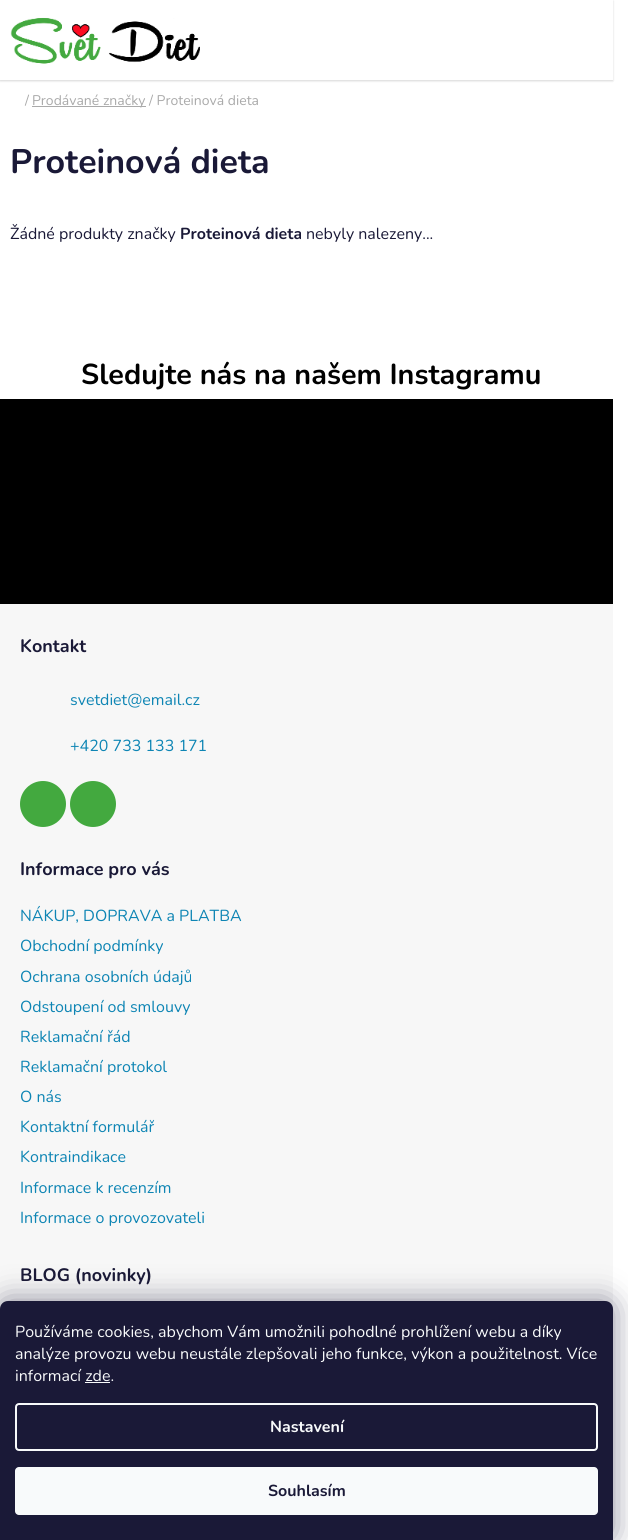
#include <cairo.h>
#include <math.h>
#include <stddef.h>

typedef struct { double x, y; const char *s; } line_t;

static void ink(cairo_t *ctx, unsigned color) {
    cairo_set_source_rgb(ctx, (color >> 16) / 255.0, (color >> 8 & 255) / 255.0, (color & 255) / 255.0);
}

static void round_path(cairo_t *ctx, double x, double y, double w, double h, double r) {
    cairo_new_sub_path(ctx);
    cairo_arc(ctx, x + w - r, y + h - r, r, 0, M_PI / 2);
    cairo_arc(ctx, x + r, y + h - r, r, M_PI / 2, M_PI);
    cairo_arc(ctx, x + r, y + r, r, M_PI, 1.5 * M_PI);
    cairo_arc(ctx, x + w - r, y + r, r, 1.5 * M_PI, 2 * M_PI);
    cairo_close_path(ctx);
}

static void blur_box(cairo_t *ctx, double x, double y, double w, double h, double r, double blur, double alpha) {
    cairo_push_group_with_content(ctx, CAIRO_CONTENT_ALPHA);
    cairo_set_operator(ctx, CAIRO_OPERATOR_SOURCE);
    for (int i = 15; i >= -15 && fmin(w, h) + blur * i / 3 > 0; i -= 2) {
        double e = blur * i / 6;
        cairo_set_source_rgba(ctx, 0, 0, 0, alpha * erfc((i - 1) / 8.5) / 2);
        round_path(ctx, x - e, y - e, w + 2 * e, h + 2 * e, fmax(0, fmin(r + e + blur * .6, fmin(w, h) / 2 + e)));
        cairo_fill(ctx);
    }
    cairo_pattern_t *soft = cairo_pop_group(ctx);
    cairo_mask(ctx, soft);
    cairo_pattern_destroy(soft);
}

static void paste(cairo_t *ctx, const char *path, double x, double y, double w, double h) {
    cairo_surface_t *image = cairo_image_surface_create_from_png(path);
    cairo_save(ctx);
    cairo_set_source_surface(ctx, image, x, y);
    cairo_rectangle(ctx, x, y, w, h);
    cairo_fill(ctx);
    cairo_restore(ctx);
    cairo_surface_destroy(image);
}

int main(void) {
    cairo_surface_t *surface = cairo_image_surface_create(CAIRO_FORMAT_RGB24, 628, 1540);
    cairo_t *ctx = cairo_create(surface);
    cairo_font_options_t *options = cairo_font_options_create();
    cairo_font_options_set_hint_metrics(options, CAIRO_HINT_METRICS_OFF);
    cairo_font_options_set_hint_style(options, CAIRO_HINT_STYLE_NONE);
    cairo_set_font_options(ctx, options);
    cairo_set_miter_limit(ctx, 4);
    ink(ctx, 0xFFFFFF);
    cairo_paint(ctx);
    cairo_save(ctx);
    cairo_set_fill_rule(ctx, CAIRO_FILL_RULE_EVEN_ODD);
    cairo_new_path(ctx);
    cairo_move_to(ctx, 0, 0);
    cairo_line_to(ctx, 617, 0);
    cairo_line_to(ctx, 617, 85);
    cairo_line_to(ctx, 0, 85);
    cairo_close_path(ctx);
    cairo_move_to(ctx, 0, 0);
    cairo_line_to(ctx, 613, 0);
    cairo_line_to(ctx, 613, 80);
    cairo_line_to(ctx, 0, 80);
    cairo_close_path(ctx);
    cairo_clip(ctx);
    ink(ctx, 0x000000);
    blur_box(ctx, 0, 1, 613, 80, 0, 1, 0.16);
    cairo_restore(ctx);
    paste(ctx, "media/1.png", 10, 17, 190, 47);
    cairo_select_font_face(ctx, "Nunito", CAIRO_FONT_SLANT_NORMAL, CAIRO_FONT_WEIGHT_NORMAL);
    cairo_set_font_size(ctx, 14);
    ink(ctx, 0xAAAAAA);
    cairo_move_to(ctx, 25, 105);
    cairo_show_text(ctx, "/");
    cairo_rectangle(ctx, 32, 106, 114, 1);
    cairo_fill(ctx);
    cairo_move_to(ctx, 32, 105);
    cairo_show_text(ctx, "Prodávané značky / Proteinová dieta");
    cairo_select_font_face(ctx, "Nunito", CAIRO_FONT_SLANT_NORMAL, CAIRO_FONT_WEIGHT_BOLD);
    cairo_set_font_size(ctx, 34);
    ink(ctx, 0x1A1937);
    cairo_move_to(ctx, 10, 173);
    cairo_show_text(ctx, "Proteinová dieta");
    cairo_select_font_face(ctx, "Nunito", CAIRO_FONT_SLANT_NORMAL, CAIRO_FONT_WEIGHT_NORMAL);
    cairo_set_font_size(ctx, 16);
    cairo_move_to(ctx, 10, 239);
    cairo_show_text(ctx, "Žádné produkty značky");
    cairo_select_font_face(ctx, "Nunito", CAIRO_FONT_SLANT_NORMAL, CAIRO_FONT_WEIGHT_BOLD);
    cairo_move_to(ctx, 180, 239);
    cairo_show_text(ctx, "Proteinová dieta");
    cairo_select_font_face(ctx, "Nunito", CAIRO_FONT_SLANT_NORMAL, CAIRO_FONT_WEIGHT_NORMAL);
    cairo_move_to(ctx, 306, 239);
    cairo_show_text(ctx, "nebyly nalezeny...");
    cairo_select_font_face(ctx, "Nunito", CAIRO_FONT_SLANT_NORMAL, CAIRO_FONT_WEIGHT_BOLD);
    cairo_set_font_size(ctx, 28.75);
    ink(ctx, 0x000000);
    cairo_move_to(ctx, 81, 384);
    cairo_show_text(ctx, "Sledujte nás na našem Instagramu");
    cairo_rectangle(ctx, 0, 399, 613, 205);
    cairo_fill(ctx);
    ink(ctx, 0xF7F7F7);
    cairo_rectangle(ctx, 0, 604, 613, 705);
    cairo_fill(ctx);
    cairo_set_font_size(ctx, 18);
    ink(ctx, 0x1A1937);
    cairo_move_to(ctx, 20, 652);
    cairo_show_text(ctx, "Kontakt");
    cairo_select_font_face(ctx, "Nunito", CAIRO_FONT_SLANT_NORMAL, CAIRO_FONT_WEIGHT_NORMAL);
    cairo_set_font_size(ctx, 16);
    ink(ctx, 0x0E85B4);
    cairo_move_to(ctx, 70, 705);
    cairo_show_text(ctx, "svetdiet@email.cz");
    cairo_move_to(ctx, 70, 751);
    cairo_show_text(ctx, "+420 733 133 171");
    ink(ctx, 0x43A93F);
    cairo_new_path(ctx);
    cairo_arc(ctx, 43, 804, 23, 0, 2 * M_PI);
    cairo_fill(ctx);
    cairo_arc(ctx, 93, 804, 23, 0, 2 * M_PI);
    cairo_fill(ctx);
    cairo_select_font_face(ctx, "Nunito", CAIRO_FONT_SLANT_NORMAL, CAIRO_FONT_WEIGHT_BOLD);
    cairo_set_font_size(ctx, 18);
    ink(ctx, 0x1A1937);
    cairo_move_to(ctx, 20, 875);
    cairo_show_text(ctx, "Informace pro vás");
    cairo_select_font_face(ctx, "Nunito", CAIRO_FONT_SLANT_NORMAL, CAIRO_FONT_WEIGHT_NORMAL);
    cairo_set_font_size(ctx, 16);
    ink(ctx, 0x0E85B4);
    {
        static const line_t items[] = {
            {20, 921, "NÁKUP, DOPRAVA a PLATBA"},
            {20, 951, "Obchodní podmínky"},
            {20, 982, "Ochrana osobních údajů"},
            {20, 1012, "Odstoupení od smlouvy"},
            {20, 1042, "Reklamační řád"},
            {20, 1072, "Reklamační protokol"},
            {20, 1102, "O nás"},
            {20, 1132, "Kontaktní formulář"},
            {20, 1162, "Kontraindikace"},
            {20, 1193, "Informace k recenzím"},
            {20, 1223, "Informace o provozovateli"},
        };
        for (size_t i = 0; i < sizeof items / sizeof *items; i++) {
            cairo_move_to(ctx, items[i].x, items[i].y);
            cairo_show_text(ctx, items[i].s);
        }
    }
    cairo_select_font_face(ctx, "Nunito", CAIRO_FONT_SLANT_NORMAL, CAIRO_FONT_WEIGHT_BOLD);
    cairo_set_font_size(ctx, 18);
    ink(ctx, 0x1A1937);
    cairo_move_to(ctx, 20, 1281);
    cairo_show_text(ctx, "BLOG (novinky)");
    ink(ctx, 0x1B1939);
    blur_box(ctx, 0, 1301, 613, 239, 8, 15, 0.5);
    ink(ctx, 0x1A1937);
    cairo_new_path(ctx);
    cairo_move_to(ctx, 8, 1301);
    cairo_line_to(ctx, 605, 1301);
    cairo_curve_to(ctx, 609.5, 1301, 613, 1304.5, 613, 1309);
    cairo_line_to(ctx, 613, 1540);
    cairo_line_to(ctx, 0, 1540);
    cairo_line_to(ctx, 0, 1309);
    cairo_curve_to(ctx, 0, 1304.5, 3.5, 1301, 8, 1301);
    cairo_close_path(ctx);
    cairo_fill(ctx);
    cairo_select_font_face(ctx, "Nunito", CAIRO_FONT_SLANT_NORMAL, CAIRO_FONT_WEIGHT_NORMAL);
    cairo_set_font_size(ctx, 16);
    ink(ctx, 0xF8FAFB);
    {
        static const line_t items[] = {
            {15, 1337, "Používáme cookies, abychom Vám umožnili pohodlné prohlížení webu a díky"},
            {15, 1359, "analýze provozu webu neustále zlepšovali jeho funkce, výkon a použitelnost. Více"},
            {15, 1381, "informací zde."},
        };
        for (size_t i = 0; i < sizeof items / sizeof *items; i++) {
            cairo_move_to(ctx, items[i].x, items[i].y);
            cairo_show_text(ctx, items[i].s);
        }
    }
    cairo_rectangle(ctx, 85, 1382, 25, 1);
    cairo_fill(ctx);
    round_path(ctx, 16, 1404, 581, 46, 3);
    cairo_stroke(ctx);
    cairo_select_font_face(ctx, "Nunito", CAIRO_FONT_SLANT_NORMAL, CAIRO_FONT_WEIGHT_BOLD);
    cairo_move_to(ctx, 270, 1432);
    cairo_show_text(ctx, "Nastavení");
    round_path(ctx, 15, 1467, 583, 48, 4);
    cairo_fill(ctx);
    ink(ctx, 0x1A1937);
    cairo_move_to(ctx, 268, 1496);
    cairo_show_text(ctx, "Souhlasím");
    cairo_surface_write_to_png(surface, "image.png");
    cairo_font_options_destroy(options);
    cairo_destroy(ctx);
    cairo_surface_destroy(surface);
    return 0;
}
